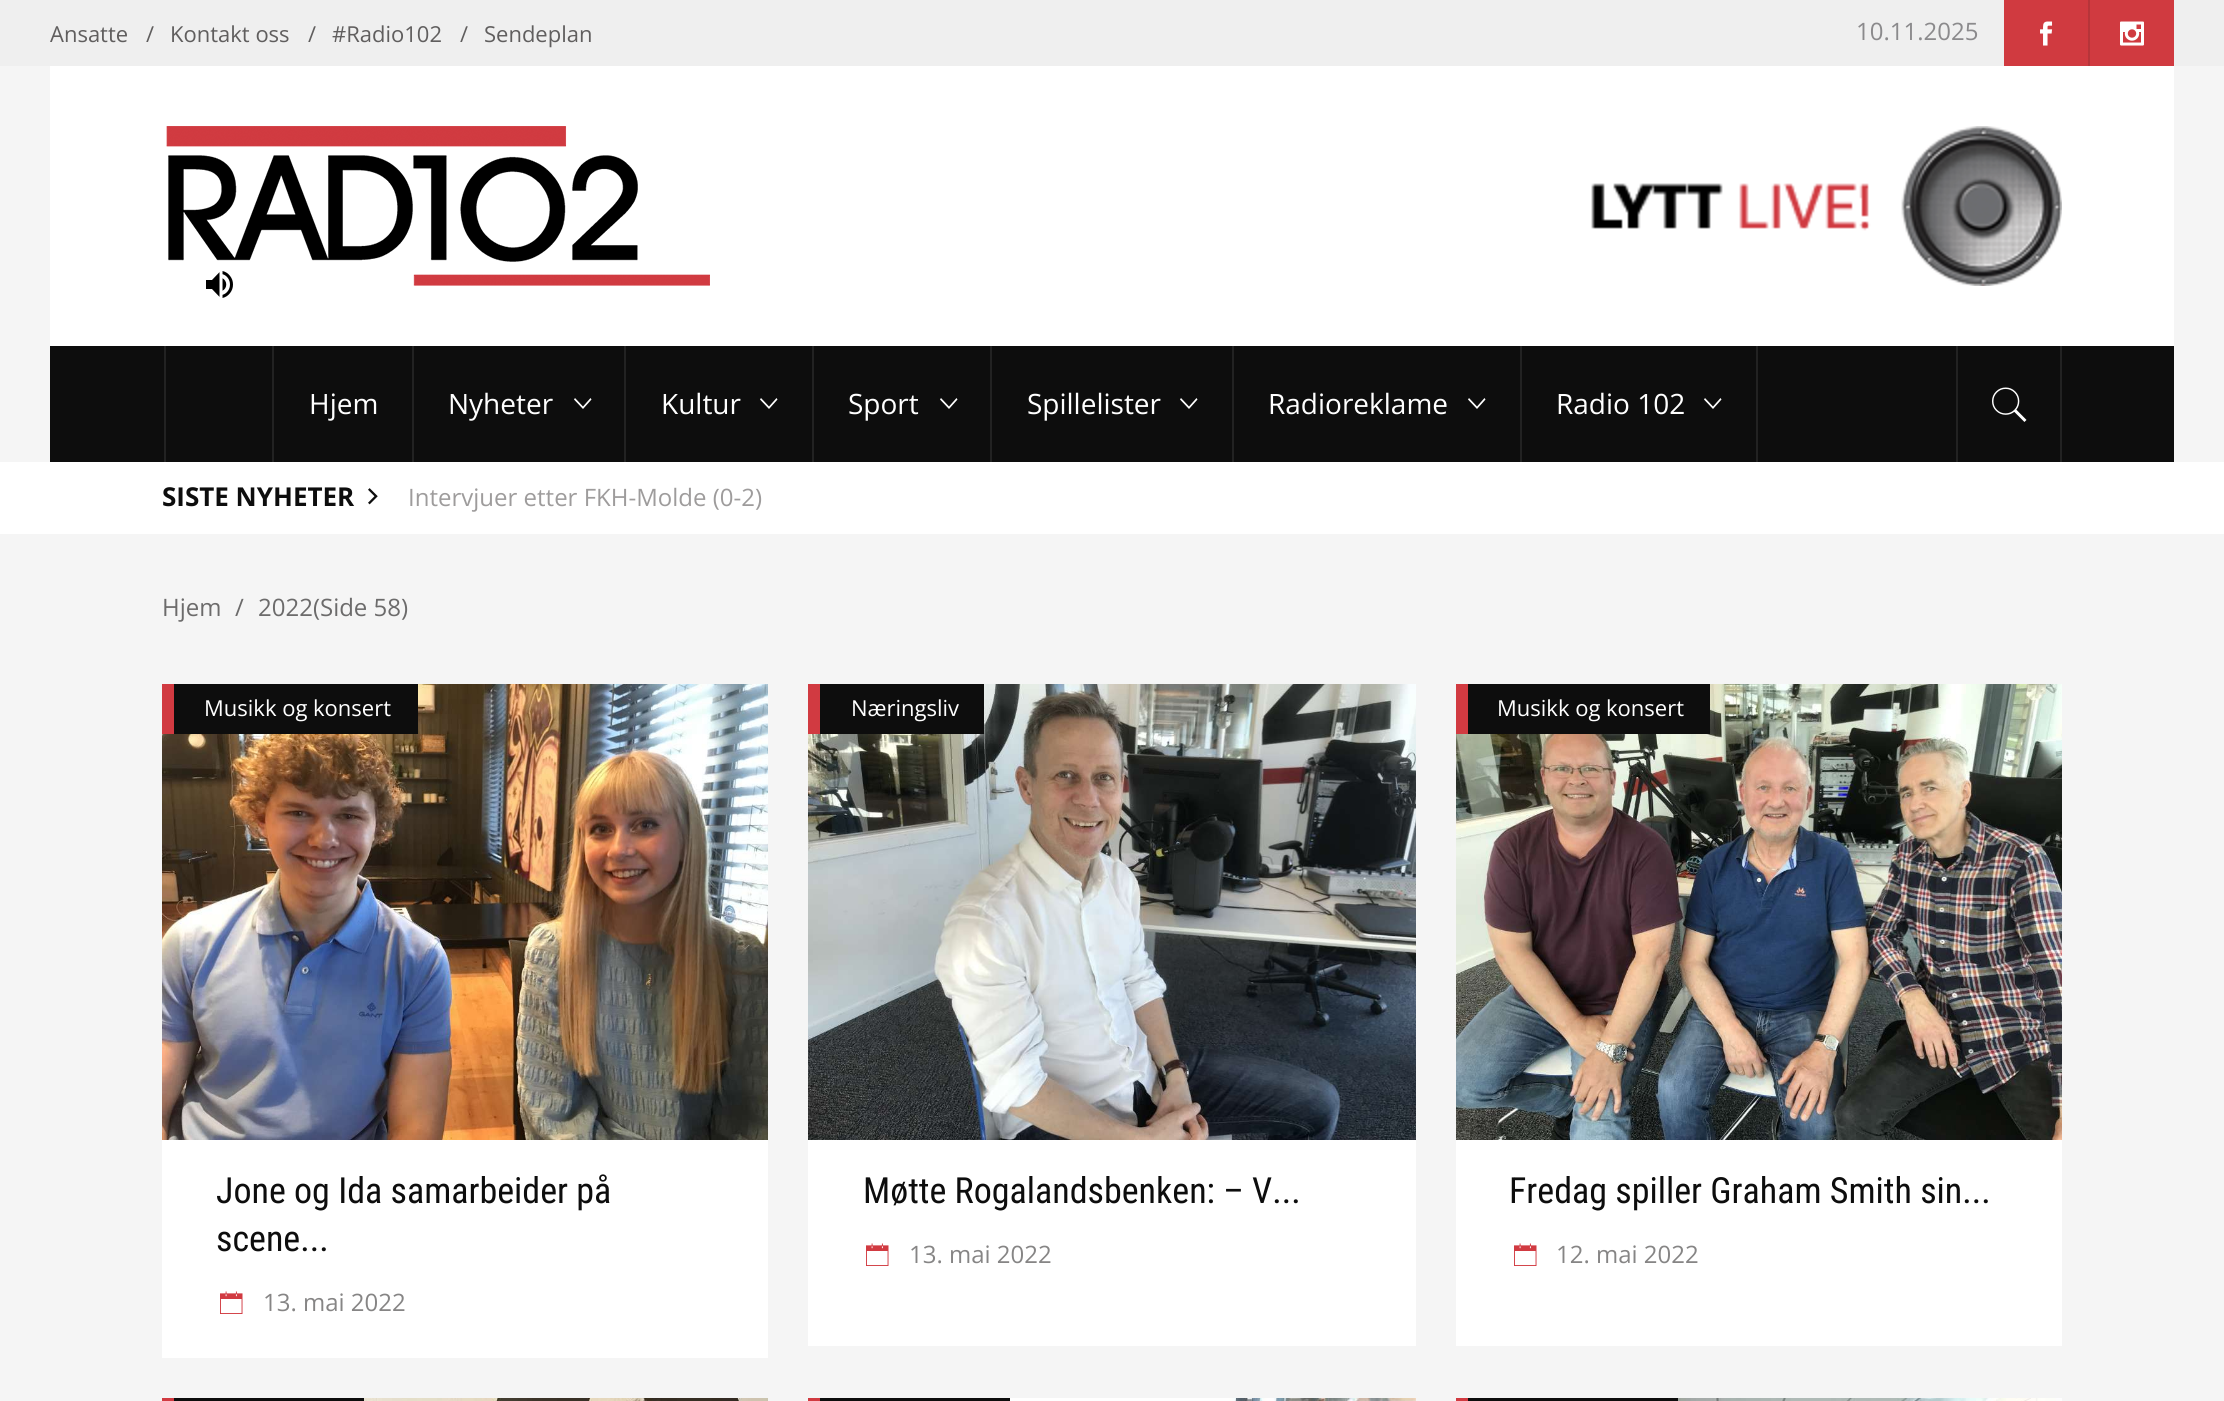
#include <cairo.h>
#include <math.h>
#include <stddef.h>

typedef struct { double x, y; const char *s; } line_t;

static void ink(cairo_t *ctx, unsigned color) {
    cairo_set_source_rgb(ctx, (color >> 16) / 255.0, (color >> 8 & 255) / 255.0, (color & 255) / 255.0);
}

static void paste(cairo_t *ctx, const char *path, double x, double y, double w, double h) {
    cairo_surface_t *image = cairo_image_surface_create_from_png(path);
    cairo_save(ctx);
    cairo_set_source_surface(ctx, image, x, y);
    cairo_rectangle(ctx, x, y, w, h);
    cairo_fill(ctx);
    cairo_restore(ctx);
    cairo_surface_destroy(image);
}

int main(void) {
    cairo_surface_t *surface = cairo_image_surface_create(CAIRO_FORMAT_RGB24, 2224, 1401);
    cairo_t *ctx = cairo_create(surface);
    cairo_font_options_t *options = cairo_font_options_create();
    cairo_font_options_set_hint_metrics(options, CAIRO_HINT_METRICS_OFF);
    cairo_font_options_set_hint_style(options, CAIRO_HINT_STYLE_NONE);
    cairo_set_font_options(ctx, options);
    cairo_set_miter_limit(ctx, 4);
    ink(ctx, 0xF5F5F5);
    cairo_paint(ctx);
    ink(ctx, 0xEFEFEF);
    cairo_rectangle(ctx, 0, 0, 2224, 66);
    cairo_fill(ctx);
    cairo_select_font_face(ctx, "Open Sans", CAIRO_FONT_SLANT_NORMAL, CAIRO_FONT_WEIGHT_NORMAL);
    cairo_set_font_size(ctx, 22);
    ink(ctx, 0x605E5E);
    {
        static const line_t items[] = {
            {50, 42, "Ansatte"},
            {146, 42, "/"},
            {170, 42, "Kontakt oss"},
            {308, 42, "/"},
            {332, 42, "#Radio102"},
            {460, 42, "/"},
            {484, 42, "Sendeplan"},
        };
        for (size_t i = 0; i < sizeof items / sizeof *items; i++) {
            cairo_move_to(ctx, items[i].x, items[i].y);
            cairo_show_text(ctx, items[i].s);
        }
    }
    cairo_set_font_size(ctx, 24);
    ink(ctx, 0x8B8A8C);
    cairo_move_to(ctx, 1856, 40);
    cairo_show_text(ctx, "10.11.2025");
    ink(ctx, 0xD03A40);
    cairo_rectangle(ctx, 2004, 0, 84, 66);
    cairo_fill(ctx);
    paste(ctx, "media/1.png", 2040, 21, 13, 25);
    ink(ctx, 0xB6353A);
    cairo_rectangle(ctx, 2088, 0, 2, 66);
    cairo_fill(ctx);
    ink(ctx, 0xD03A40);
    cairo_rectangle(ctx, 2090, 0, 84, 66);
    cairo_fill(ctx);
    paste(ctx, "media/2.png", 2120, 21, 24, 25);
    ink(ctx, 0xFFFFFF);
    cairo_rectangle(ctx, 50, 66, 2124, 280);
    cairo_fill(ctx);
    paste(ctx, "media/3.png", 166, 126, 544, 160);
    paste(ctx, "media/4.png", 1591, 126, 471, 160);
    ink(ctx, 0x0D0D0D);
    cairo_rectangle(ctx, 50, 346, 2124, 116);
    cairo_fill(ctx);
    ink(ctx, 0x222222);
    cairo_rectangle(ctx, 164, 346, 2, 116);
    cairo_fill(ctx);
    paste(ctx, "media/5.png", 206, 271, 27, 27);
    cairo_rectangle(ctx, 272, 346, 2, 116);
    cairo_fill(ctx);
    cairo_set_font_size(ctx, 28);
    ink(ctx, 0xFFFFFF);
    cairo_move_to(ctx, 309, 414);
    cairo_show_text(ctx, "Hjem");
    ink(ctx, 0x222222);
    cairo_rectangle(ctx, 412, 346, 2, 116);
    cairo_fill(ctx);
    ink(ctx, 0xFFFFFF);
    cairo_move_to(ctx, 448, 414);
    cairo_show_text(ctx, "Nyheter");
    cairo_new_path(ctx);
    cairo_move_to(ctx, 590.5, 398);
    cairo_line_to(ctx, 591.5, 399.5);
    cairo_line_to(ctx, 583, 409);
    cairo_line_to(ctx, 574, 399.5);
    cairo_line_to(ctx, 575, 398);
    cairo_line_to(ctx, 583, 406.5);
    cairo_close_path(ctx);
    cairo_fill(ctx);
    ink(ctx, 0x222222);
    cairo_rectangle(ctx, 624, 346, 2, 116);
    cairo_fill(ctx);
    ink(ctx, 0xFFFFFF);
    cairo_move_to(ctx, 661, 414);
    cairo_show_text(ctx, "Kultur");
    cairo_new_path(ctx);
    cairo_move_to(ctx, 776.5, 398);
    cairo_line_to(ctx, 777.5, 399.5);
    cairo_line_to(ctx, 769, 409);
    cairo_line_to(ctx, 760, 399.5);
    cairo_line_to(ctx, 761, 398);
    cairo_line_to(ctx, 769, 406.5);
    cairo_close_path(ctx);
    cairo_fill(ctx);
    ink(ctx, 0x222222);
    cairo_rectangle(ctx, 812, 346, 2, 116);
    cairo_fill(ctx);
    ink(ctx, 0xFFFFFF);
    cairo_move_to(ctx, 848, 414);
    cairo_show_text(ctx, "Sport");
    cairo_new_path(ctx);
    cairo_move_to(ctx, 956.5, 398);
    cairo_line_to(ctx, 957.5, 399.5);
    cairo_line_to(ctx, 949, 409);
    cairo_line_to(ctx, 940, 399.5);
    cairo_line_to(ctx, 941, 398);
    cairo_line_to(ctx, 949, 406.5);
    cairo_close_path(ctx);
    cairo_fill(ctx);
    ink(ctx, 0x222222);
    cairo_rectangle(ctx, 990, 346, 2, 116);
    cairo_fill(ctx);
    ink(ctx, 0xFFFFFF);
    cairo_move_to(ctx, 1027, 414);
    cairo_show_text(ctx, "Spillelister");
    cairo_new_path(ctx);
    cairo_move_to(ctx, 1196.5, 398);
    cairo_line_to(ctx, 1197.5, 399.5);
    cairo_line_to(ctx, 1189, 409);
    cairo_line_to(ctx, 1180, 399.5);
    cairo_line_to(ctx, 1181, 398);
    cairo_line_to(ctx, 1189, 406.5);
    cairo_close_path(ctx);
    cairo_fill(ctx);
    ink(ctx, 0x222222);
    cairo_rectangle(ctx, 1232, 346, 2, 116);
    cairo_fill(ctx);
    ink(ctx, 0xFFFFFF);
    cairo_move_to(ctx, 1268, 414);
    cairo_show_text(ctx, "Radioreklame");
    cairo_new_path(ctx);
    cairo_move_to(ctx, 1484.5, 398);
    cairo_line_to(ctx, 1485.5, 399.5);
    cairo_line_to(ctx, 1477, 409);
    cairo_line_to(ctx, 1468, 399.5);
    cairo_line_to(ctx, 1469, 398);
    cairo_line_to(ctx, 1477, 406.5);
    cairo_close_path(ctx);
    cairo_fill(ctx);
    ink(ctx, 0x222222);
    cairo_rectangle(ctx, 1756, 346, 2, 116);
    cairo_fill(ctx);
    cairo_rectangle(ctx, 1520, 346, 2, 116);
    cairo_fill(ctx);
    ink(ctx, 0xFFFFFF);
    cairo_move_to(ctx, 1556, 414);
    cairo_show_text(ctx, "Radio 102");
    cairo_new_path(ctx);
    cairo_move_to(ctx, 1720.5, 398);
    cairo_line_to(ctx, 1721.5, 399.5);
    cairo_line_to(ctx, 1713, 409);
    cairo_line_to(ctx, 1704, 399.5);
    cairo_line_to(ctx, 1705, 398);
    cairo_line_to(ctx, 1713, 406.5);
    cairo_close_path(ctx);
    cairo_fill(ctx);
    ink(ctx, 0x222222);
    cairo_rectangle(ctx, 2060, 346, 2, 116);
    cairo_fill(ctx);
    cairo_rectangle(ctx, 1956, 346, 2, 116);
    cairo_fill(ctx);
    paste(ctx, "media/6.png", 1992, 387, 35, 35);
    ink(ctx, 0xFFFFFF);
    cairo_rectangle(ctx, 0, 462, 2224, 72);
    cairo_fill(ctx);
    cairo_select_font_face(ctx, "Open Sans", CAIRO_FONT_SLANT_NORMAL, CAIRO_FONT_WEIGHT_BOLD);
    cairo_set_font_size(ctx, 26);
    ink(ctx, 0x0D0D0D);
    cairo_move_to(ctx, 162, 506);
    cairo_show_text(ctx, "SISTE NYHETER");
    paste(ctx, "media/7.png", 368, 488, 10, 17);
    cairo_select_font_face(ctx, "Open Sans", CAIRO_FONT_SLANT_NORMAL, CAIRO_FONT_WEIGHT_NORMAL);
    cairo_set_font_size(ctx, 24);
    ink(ctx, 0x9E9C9C);
    cairo_move_to(ctx, 408, 506);
    cairo_show_text(ctx, "Intervjuer etter FKH-Molde (0-2)");
    ink(ctx, 0x6C6B6B);
    {
        static const line_t items[] = {
            {162, 616, "Hjem"},
            {235, 616, "/"},
            {258, 616, "2022(Side 58)"},
        };
        for (size_t i = 0; i < sizeof items / sizeof *items; i++) {
            cairo_move_to(ctx, items[i].x, items[i].y);
            cairo_show_text(ctx, items[i].s);
        }
    }
    paste(ctx, "media/8.png", 162, 684, 606, 456);
    ink(ctx, 0x0D0D0D);
    cairo_rectangle(ctx, 174, 684, 244, 50);
    cairo_fill(ctx);
    ink(ctx, 0xD13A41);
    cairo_rectangle(ctx, 162, 684, 12, 50);
    cairo_fill(ctx);
    cairo_set_font_size(ctx, 22);
    ink(ctx, 0xFFFFFF);
    cairo_move_to(ctx, 204, 716);
    cairo_show_text(ctx, "Musikk og konsert");
    cairo_rectangle(ctx, 162, 1140, 606, 218);
    cairo_fill(ctx);
    cairo_select_font_face(ctx, "Roboto Condensed", CAIRO_FONT_SLANT_NORMAL, CAIRO_FONT_WEIGHT_NORMAL);
    cairo_set_font_size(ctx, 36);
    ink(ctx, 0x0D0D0D);
    cairo_move_to(ctx, 216, 1203);
    cairo_show_text(ctx, "Jone og Ida samarbeider på");
    cairo_move_to(ctx, 216, 1251);
    cairo_show_text(ctx, "scene...");
    paste(ctx, "media/9.png", 220, 1291, 23, 23);
    cairo_select_font_face(ctx, "Open Sans", CAIRO_FONT_SLANT_NORMAL, CAIRO_FONT_WEIGHT_NORMAL);
    cairo_set_font_size(ctx, 24);
    ink(ctx, 0x868585);
    cairo_move_to(ctx, 263, 1311);
    cairo_show_text(ctx, "13. mai 2022");
    paste(ctx, "media/10.png", 808, 684, 608, 456);
    ink(ctx, 0x0D0D0D);
    cairo_rectangle(ctx, 820, 684, 164, 50);
    cairo_fill(ctx);
    ink(ctx, 0xD13A41);
    cairo_rectangle(ctx, 808, 684, 12, 50);
    cairo_fill(ctx);
    cairo_set_font_size(ctx, 22);
    ink(ctx, 0xFFFFFF);
    cairo_move_to(ctx, 851, 716);
    cairo_show_text(ctx, "Næringsliv");
    cairo_rectangle(ctx, 808, 1140, 608, 206);
    cairo_fill(ctx);
    cairo_select_font_face(ctx, "Roboto Condensed", CAIRO_FONT_SLANT_NORMAL, CAIRO_FONT_WEIGHT_NORMAL);
    cairo_set_font_size(ctx, 36);
    ink(ctx, 0x0D0D0D);
    cairo_move_to(ctx, 863, 1203);
    cairo_show_text(ctx, "Møtte Rogalandsbenken: – V...");
    paste(ctx, "media/9.png", 866, 1243, 23, 23);
    cairo_select_font_face(ctx, "Open Sans", CAIRO_FONT_SLANT_NORMAL, CAIRO_FONT_WEIGHT_NORMAL);
    cairo_set_font_size(ctx, 24);
    ink(ctx, 0x868585);
    cairo_move_to(ctx, 909, 1263);
    cairo_show_text(ctx, "13. mai 2022");
    paste(ctx, "media/11.png", 1456, 684, 606, 456);
    ink(ctx, 0x0D0D0D);
    cairo_rectangle(ctx, 1468, 684, 242, 50);
    cairo_fill(ctx);
    ink(ctx, 0xD13A41);
    cairo_rectangle(ctx, 1456, 684, 12, 50);
    cairo_fill(ctx);
    cairo_set_font_size(ctx, 22);
    ink(ctx, 0xFFFFFF);
    cairo_move_to(ctx, 1497, 716);
    cairo_show_text(ctx, "Musikk og konsert");
    cairo_rectangle(ctx, 1456, 1140, 606, 206);
    cairo_fill(ctx);
    cairo_select_font_face(ctx, "Roboto Condensed", CAIRO_FONT_SLANT_NORMAL, CAIRO_FONT_WEIGHT_NORMAL);
    cairo_set_font_size(ctx, 36);
    ink(ctx, 0x0D0D0D);
    cairo_move_to(ctx, 1509, 1203);
    cairo_show_text(ctx, "Fredag spiller Graham Smith sin...");
    paste(ctx, "media/9.png", 1514, 1243, 23, 23);
    cairo_select_font_face(ctx, "Open Sans", CAIRO_FONT_SLANT_NORMAL, CAIRO_FONT_WEIGHT_NORMAL);
    cairo_set_font_size(ctx, 24);
    ink(ctx, 0x868585);
    cairo_move_to(ctx, 1556, 1263);
    cairo_show_text(ctx, "12. mai 2022");
    ink(ctx, 0x0D0D0D);
    cairo_rectangle(ctx, 174, 1398, 190, 3);
    cairo_fill(ctx);
    ink(ctx, 0xD13A41);
    cairo_rectangle(ctx, 162, 1398, 12, 3);
    cairo_fill(ctx);
    paste(ctx, "media/12.png", 364, 1398, 404, 3);
    ink(ctx, 0x0D0D0D);
    cairo_rectangle(ctx, 820, 1398, 190, 3);
    cairo_fill(ctx);
    ink(ctx, 0xD13A41);
    cairo_rectangle(ctx, 808, 1398, 12, 3);
    cairo_fill(ctx);
    paste(ctx, "media/13.png", 1010, 1398, 406, 3);
    ink(ctx, 0x0D0D0D);
    cairo_rectangle(ctx, 1468, 1398, 210, 3);
    cairo_fill(ctx);
    ink(ctx, 0xD13A41);
    cairo_rectangle(ctx, 1456, 1398, 12, 3);
    cairo_fill(ctx);
    paste(ctx, "media/14.png", 1678, 1398, 384, 3);
    cairo_surface_write_to_png(surface, "image.png");
    cairo_font_options_destroy(options);
    cairo_destroy(ctx);
    cairo_surface_destroy(surface);
    return 0;
}
